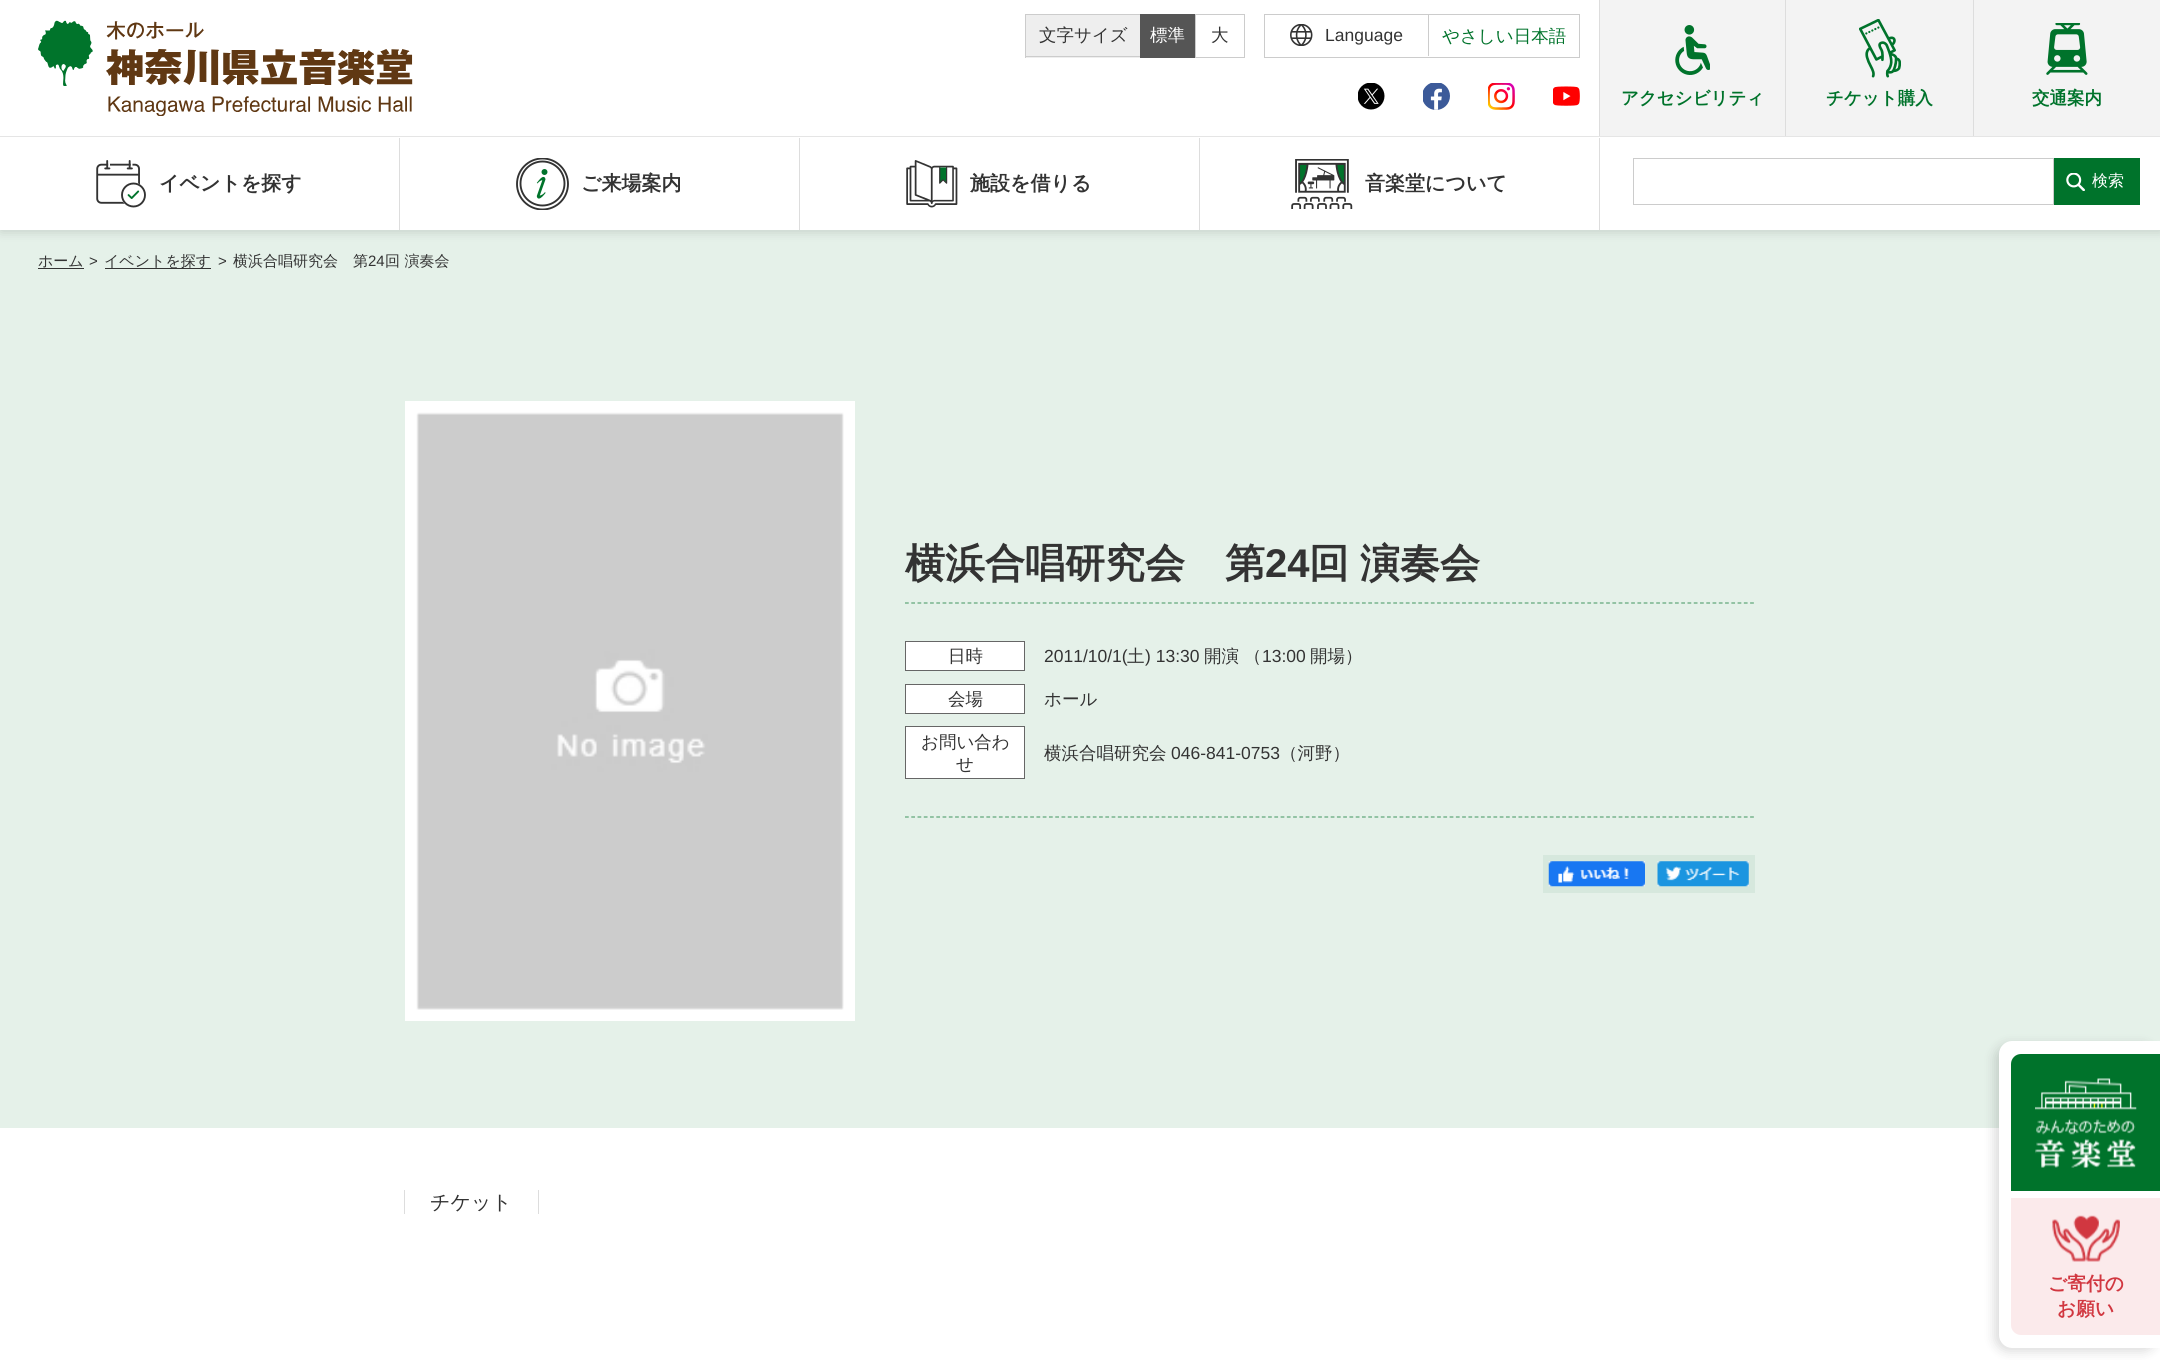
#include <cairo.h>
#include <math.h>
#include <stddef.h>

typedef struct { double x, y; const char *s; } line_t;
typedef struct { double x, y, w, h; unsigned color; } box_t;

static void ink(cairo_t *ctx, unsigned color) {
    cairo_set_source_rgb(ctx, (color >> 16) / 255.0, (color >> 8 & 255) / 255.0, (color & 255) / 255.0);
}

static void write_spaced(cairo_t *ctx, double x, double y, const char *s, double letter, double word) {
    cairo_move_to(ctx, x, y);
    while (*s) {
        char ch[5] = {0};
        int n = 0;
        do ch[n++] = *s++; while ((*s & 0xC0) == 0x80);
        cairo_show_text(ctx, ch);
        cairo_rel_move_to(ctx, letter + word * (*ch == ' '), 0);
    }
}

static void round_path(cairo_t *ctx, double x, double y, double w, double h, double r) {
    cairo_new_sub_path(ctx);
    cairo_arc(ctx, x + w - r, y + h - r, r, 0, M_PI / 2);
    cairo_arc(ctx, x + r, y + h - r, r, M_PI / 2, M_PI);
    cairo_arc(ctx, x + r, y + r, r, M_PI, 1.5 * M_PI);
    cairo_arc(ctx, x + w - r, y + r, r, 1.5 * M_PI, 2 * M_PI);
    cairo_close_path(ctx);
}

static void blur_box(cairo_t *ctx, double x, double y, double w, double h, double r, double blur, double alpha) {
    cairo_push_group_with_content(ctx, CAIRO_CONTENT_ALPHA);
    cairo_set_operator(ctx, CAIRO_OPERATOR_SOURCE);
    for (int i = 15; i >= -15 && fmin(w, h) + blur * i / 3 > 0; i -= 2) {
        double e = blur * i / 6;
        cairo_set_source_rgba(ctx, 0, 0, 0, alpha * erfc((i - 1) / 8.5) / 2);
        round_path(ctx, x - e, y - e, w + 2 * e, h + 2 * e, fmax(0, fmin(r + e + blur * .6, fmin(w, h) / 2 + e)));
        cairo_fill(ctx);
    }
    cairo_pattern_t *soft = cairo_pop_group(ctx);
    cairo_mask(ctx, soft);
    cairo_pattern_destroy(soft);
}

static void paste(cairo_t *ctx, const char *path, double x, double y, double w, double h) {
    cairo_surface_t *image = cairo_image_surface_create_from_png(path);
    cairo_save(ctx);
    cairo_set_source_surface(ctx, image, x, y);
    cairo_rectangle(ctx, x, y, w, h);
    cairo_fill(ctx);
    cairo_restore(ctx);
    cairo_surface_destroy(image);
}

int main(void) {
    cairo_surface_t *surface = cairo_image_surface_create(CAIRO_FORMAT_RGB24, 2160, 1360);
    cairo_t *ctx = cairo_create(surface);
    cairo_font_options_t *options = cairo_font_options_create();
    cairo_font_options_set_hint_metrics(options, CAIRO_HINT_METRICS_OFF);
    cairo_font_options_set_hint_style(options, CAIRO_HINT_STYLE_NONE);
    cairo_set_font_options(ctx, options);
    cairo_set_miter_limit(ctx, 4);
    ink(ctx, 0xFFFFFF);
    cairo_paint(ctx);
    ink(ctx, 0xE5F1E9);
    cairo_rectangle(ctx, 0, 230, 2160, 898);
    cairo_fill(ctx);
    ink(ctx, 0x000000);
    blur_box(ctx, 1, 1, 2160, 230, 0, 6, 0.16);
    ink(ctx, 0xFFFFFF);
    cairo_rectangle(ctx, 0, 0, 2160, 230);
    cairo_fill(ctx);
    ink(ctx, 0xE5E5E5);
    cairo_rectangle(ctx, 0, 136, 2160, 1);
    cairo_fill(ctx);
    paste(ctx, "media/1.png", 38, 20, 375, 96);
    {
        static const box_t items[] = {
            {1026, 15, 114, 43, 0xEEEEEE},
            {1025, 14, 115, 1, 0xCCCCCC},
            {1025, 56, 115, 1, 0xCCCCCC},
            {1025, 14, 1, 44, 0xCCCCCC},
        };
        for (size_t i = 0; i < sizeof items / sizeof *items; i++) {
            ink(ctx, items[i].color);
            cairo_rectangle(ctx, items[i].x, items[i].y, items[i].w, items[i].h);
            cairo_fill(ctx);
        }
    }
    cairo_select_font_face(ctx, "WenQuanYi Zen Hei Medium", CAIRO_FONT_SLANT_NORMAL, CAIRO_FONT_WEIGHT_NORMAL);
    cairo_set_font_size(ctx, 17.5);
    ink(ctx, 0x333333);
    cairo_move_to(ctx, 1039, 41);
    cairo_show_text(ctx, "文字サイズ");
    ink(ctx, 0x555555);
    cairo_rectangle(ctx, 1140, 14, 55, 44);
    cairo_fill(ctx);
    ink(ctx, 0xFFFFFF);
    cairo_move_to(ctx, 1150, 41);
    cairo_show_text(ctx, "標準");
    cairo_rectangle(ctx, 1195.5, 14.5, 49, 43);
    ink(ctx, 0xCCCCCC);
    cairo_set_line_width(ctx, 1);
    cairo_stroke(ctx);
    ink(ctx, 0x333333);
    cairo_move_to(ctx, 1211, 41);
    cairo_show_text(ctx, "大");
    cairo_rectangle(ctx, 1264.5, 14.5, 315, 43);
    ink(ctx, 0xCCCCCC);
    cairo_stroke(ctx);
    paste(ctx, "media/2.png", 1290, 24, 23, 22);
    cairo_select_font_face(ctx, "Liberation Sans", CAIRO_FONT_SLANT_NORMAL, CAIRO_FONT_WEIGHT_NORMAL);
    ink(ctx, 0x333333);
    cairo_move_to(ctx, 1325, 41);
    cairo_show_text(ctx, "Language");
    ink(ctx, 0xCCCCCC);
    cairo_rectangle(ctx, 1428, 15, 1, 41);
    cairo_fill(ctx);
    cairo_select_font_face(ctx, "WenQuanYi Zen Hei Medium", CAIRO_FONT_SLANT_NORMAL, CAIRO_FONT_WEIGHT_NORMAL);
    ink(ctx, 0x00732B);
    cairo_move_to(ctx, 1442, 42);
    cairo_show_text(ctx, "やさしい日本語");
    paste(ctx, "media/3.png", 1358, 83, 27, 27);
    paste(ctx, "media/4.png", 1423, 83, 27, 27);
    paste(ctx, "media/5.png", 1488, 83, 27, 27);
    paste(ctx, "media/6.png", 1553, 86, 27, 20);
    ink(ctx, 0xF3F3F3);
    cairo_rectangle(ctx, 1600, 0, 185, 136);
    cairo_fill(ctx);
    ink(ctx, 0xDDDDDD);
    cairo_rectangle(ctx, 1599, 0, 1, 136);
    cairo_fill(ctx);
    paste(ctx, "media/7.png", 1675, 25, 35, 50);
    cairo_select_font_face(ctx, "WenQuanYi Zen Hei", CAIRO_FONT_SLANT_NORMAL, CAIRO_FONT_WEIGHT_BOLD);
    ink(ctx, 0x00732B);
    cairo_move_to(ctx, 1621, 104);
    cairo_show_text(ctx, "アクセシビリティ");
    ink(ctx, 0xF3F3F3);
    cairo_rectangle(ctx, 1786, 0, 187, 136);
    cairo_fill(ctx);
    ink(ctx, 0xDDDDDD);
    cairo_rectangle(ctx, 1785, 0, 1, 136);
    cairo_fill(ctx);
    paste(ctx, "media/8.png", 1859, 19, 42, 59);
    ink(ctx, 0x00732B);
    cairo_move_to(ctx, 1826, 104);
    cairo_show_text(ctx, "チケット購入");
    ink(ctx, 0xF3F3F3);
    cairo_rectangle(ctx, 1974, 0, 186, 136);
    cairo_fill(ctx);
    ink(ctx, 0xDDDDDD);
    cairo_rectangle(ctx, 1973, 0, 1, 136);
    cairo_fill(ctx);
    paste(ctx, "media/9.png", 2046, 23, 42, 52);
    ink(ctx, 0x00732B);
    cairo_move_to(ctx, 2032, 104);
    cairo_show_text(ctx, "交通案内");
    ink(ctx, 0xDDDDDD);
    cairo_rectangle(ctx, 399, 138, 1, 92);
    cairo_fill(ctx);
    paste(ctx, "media/10.png", 96, 160, 50, 48);
    cairo_set_font_size(ctx, 20);
    ink(ctx, 0x333333);
    cairo_move_to(ctx, 159, 190);
    cairo_show_text(ctx, "イベントを探す");
    ink(ctx, 0xDDDDDD);
    cairo_rectangle(ctx, 799, 138, 1, 92);
    cairo_fill(ctx);
    paste(ctx, "media/11.png", 516, 158, 53, 52);
    ink(ctx, 0x333333);
    cairo_move_to(ctx, 581, 190);
    cairo_show_text(ctx, "ご来場案内");
    ink(ctx, 0xDDDDDD);
    cairo_rectangle(ctx, 1199, 138, 1, 92);
    cairo_fill(ctx);
    paste(ctx, "media/12.png", 906, 160, 52, 48);
    ink(ctx, 0x333333);
    cairo_move_to(ctx, 970, 190);
    cairo_show_text(ctx, "施設を借りる");
    ink(ctx, 0xDDDDDD);
    cairo_rectangle(ctx, 1599, 138, 1, 92);
    cairo_fill(ctx);
    paste(ctx, "media/13.png", 1291, 159, 62, 50);
    ink(ctx, 0x333333);
    cairo_move_to(ctx, 1365, 190);
    cairo_show_text(ctx, "音楽堂について");
    cairo_rectangle(ctx, 1633.5, 158.5, 420, 46);
    ink(ctx, 0xCCCCCC);
    cairo_stroke(ctx);
    ink(ctx, 0x00732B);
    cairo_rectangle(ctx, 2054, 158, 86, 47);
    cairo_fill(ctx);
    paste(ctx, "media/14.png", 2066, 173, 19, 18);
    cairo_select_font_face(ctx, "WenQuanYi Zen Hei Medium", CAIRO_FONT_SLANT_NORMAL, CAIRO_FONT_WEIGHT_NORMAL);
    cairo_set_font_size(ctx, 16);
    ink(ctx, 0xFFFFFF);
    cairo_move_to(ctx, 2092, 186);
    cairo_show_text(ctx, "検索");
    cairo_set_font_size(ctx, 15);
    ink(ctx, 0x333333);
    cairo_move_to(ctx, 38, 266);
    cairo_show_text(ctx, "ホーム");
    cairo_rectangle(ctx, 38, 268, 46, 1);
    cairo_fill(ctx);
    cairo_select_font_face(ctx, "Liberation Sans", CAIRO_FONT_SLANT_NORMAL, CAIRO_FONT_WEIGHT_NORMAL);
    cairo_move_to(ctx, 89, 266);
    cairo_show_text(ctx, ">");
    cairo_rectangle(ctx, 105, 268, 106, 1);
    cairo_fill(ctx);
    cairo_select_font_face(ctx, "WenQuanYi Zen Hei Medium", CAIRO_FONT_SLANT_NORMAL, CAIRO_FONT_WEIGHT_NORMAL);
    cairo_move_to(ctx, 104, 266);
    cairo_show_text(ctx, "イベントを探す");
    cairo_select_font_face(ctx, "Liberation Sans", CAIRO_FONT_SLANT_NORMAL, CAIRO_FONT_WEIGHT_NORMAL);
    cairo_move_to(ctx, 218, 266);
    cairo_show_text(ctx, ">");
    cairo_select_font_face(ctx, "WenQuanYi Zen Hei Medium", CAIRO_FONT_SLANT_NORMAL, CAIRO_FONT_WEIGHT_NORMAL);
    cairo_move_to(ctx, 233, 266);
    cairo_show_text(ctx, "横浜合唱研究会　第");
    cairo_select_font_face(ctx, "Liberation Sans", CAIRO_FONT_SLANT_NORMAL, CAIRO_FONT_WEIGHT_NORMAL);
    cairo_move_to(ctx, 368, 266);
    cairo_show_text(ctx, "24");
    cairo_select_font_face(ctx, "WenQuanYi Zen Hei Medium", CAIRO_FONT_SLANT_NORMAL, CAIRO_FONT_WEIGHT_NORMAL);
    cairo_move_to(ctx, 385, 266);
    cairo_show_text(ctx, "回 演奏会");
    ink(ctx, 0xFFFFFF);
    cairo_rectangle(ctx, 405, 401, 450, 620);
    cairo_fill(ctx);
    paste(ctx, "media/15.png", 416, 412, 428, 598);
    cairo_select_font_face(ctx, "WenQuanYi Zen Hei", CAIRO_FONT_SLANT_NORMAL, CAIRO_FONT_WEIGHT_BOLD);
    cairo_set_font_size(ctx, 40);
    ink(ctx, 0x333333);
    cairo_move_to(ctx, 905, 577);
    cairo_show_text(ctx, "横浜合唱研究会　第");
    cairo_select_font_face(ctx, "Liberation Sans", CAIRO_FONT_SLANT_NORMAL, CAIRO_FONT_WEIGHT_BOLD);
    cairo_move_to(ctx, 1265, 577);
    cairo_show_text(ctx, "24");
    cairo_select_font_face(ctx, "WenQuanYi Zen Hei", CAIRO_FONT_SLANT_NORMAL, CAIRO_FONT_WEIGHT_BOLD);
    write_spaced(ctx, 1309, 577, "回 演奏会", 0, -1);
    cairo_new_path(ctx);
    cairo_move_to(ctx, 905, 603);
    cairo_line_to(ctx, 1755, 603);
    ink(ctx, 0x5CA577);
    cairo_set_line_width(ctx, 1.2);
    cairo_set_dash(ctx, (double[]){3.75, 2.51}, 2, 0);
    cairo_stroke(ctx);
    cairo_new_path(ctx);
    cairo_move_to(ctx, 905, 817);
    cairo_line_to(ctx, 1755, 817);
    cairo_stroke(ctx);
    ink(ctx, 0xFFFFFF);
    cairo_rectangle(ctx, 905.5, 641.5, 119, 29);
    cairo_fill_preserve(ctx);
    ink(ctx, 0x666666);
    cairo_set_line_width(ctx, 1);
    cairo_set_dash(ctx, NULL, 0, 0);
    cairo_stroke(ctx);
    cairo_select_font_face(ctx, "WenQuanYi Zen Hei Medium", CAIRO_FONT_SLANT_NORMAL, CAIRO_FONT_WEIGHT_NORMAL);
    cairo_set_font_size(ctx, 17.5);
    ink(ctx, 0x333333);
    cairo_move_to(ctx, 948, 662);
    cairo_show_text(ctx, "日時");
    cairo_select_font_face(ctx, "Liberation Sans", CAIRO_FONT_SLANT_NORMAL, CAIRO_FONT_WEIGHT_NORMAL);
    cairo_move_to(ctx, 1044, 662);
    cairo_show_text(ctx, "2011/10/1(");
    cairo_select_font_face(ctx, "WenQuanYi Zen Hei Medium", CAIRO_FONT_SLANT_NORMAL, CAIRO_FONT_WEIGHT_NORMAL);
    cairo_move_to(ctx, 1127, 662);
    cairo_show_text(ctx, "土");
    cairo_select_font_face(ctx, "Liberation Sans", CAIRO_FONT_SLANT_NORMAL, CAIRO_FONT_WEIGHT_NORMAL);
    cairo_move_to(ctx, 1145, 662);
    cairo_show_text(ctx, ") 13:30");
    cairo_select_font_face(ctx, "WenQuanYi Zen Hei Medium", CAIRO_FONT_SLANT_NORMAL, CAIRO_FONT_WEIGHT_NORMAL);
    cairo_move_to(ctx, 1204, 662);
    cairo_show_text(ctx, "開演");
    cairo_move_to(ctx, 1244, 662);
    cairo_show_text(ctx, "（");
    cairo_select_font_face(ctx, "Liberation Sans", CAIRO_FONT_SLANT_NORMAL, CAIRO_FONT_WEIGHT_NORMAL);
    cairo_move_to(ctx, 1262, 662);
    cairo_show_text(ctx, "13:00");
    cairo_select_font_face(ctx, "WenQuanYi Zen Hei Medium", CAIRO_FONT_SLANT_NORMAL, CAIRO_FONT_WEIGHT_NORMAL);
    cairo_move_to(ctx, 1310, 662);
    cairo_show_text(ctx, "開場）");
    ink(ctx, 0xFFFFFF);
    cairo_rectangle(ctx, 905.5, 684.5, 119, 29);
    cairo_fill_preserve(ctx);
    ink(ctx, 0x666666);
    cairo_stroke(ctx);
    ink(ctx, 0x333333);
    cairo_move_to(ctx, 948, 705);
    cairo_show_text(ctx, "会場");
    cairo_move_to(ctx, 1044, 705);
    cairo_show_text(ctx, "ホール");
    ink(ctx, 0xFFFFFF);
    cairo_rectangle(ctx, 905.5, 726.5, 119, 52);
    cairo_fill_preserve(ctx);
    ink(ctx, 0x666666);
    cairo_stroke(ctx);
    ink(ctx, 0x333333);
    {
        static const line_t items[] = {
            {921, 748, "お問い合わ"},
            {956, 770, "せ"},
            {1044, 759, "横浜合唱研究会"},
        };
        for (size_t i = 0; i < sizeof items / sizeof *items; i++) {
            cairo_move_to(ctx, items[i].x, items[i].y);
            cairo_show_text(ctx, items[i].s);
        }
    }
    cairo_select_font_face(ctx, "Liberation Sans", CAIRO_FONT_SLANT_NORMAL, CAIRO_FONT_WEIGHT_NORMAL);
    cairo_move_to(ctx, 1171, 759);
    cairo_show_text(ctx, "046-841-0753");
    cairo_select_font_face(ctx, "WenQuanYi Zen Hei Medium", CAIRO_FONT_SLANT_NORMAL, CAIRO_FONT_WEIGHT_NORMAL);
    cairo_move_to(ctx, 1280, 759);
    cairo_show_text(ctx, "（河野）");
    ink(ctx, 0xD6E8DD);
    cairo_rectangle(ctx, 1543, 855, 212, 38);
    cairo_fill(ctx);
    paste(ctx, "media/16.png", 1548, 861, 97, 26);
    paste(ctx, "media/17.png", 1657, 861, 92, 26);
    ink(ctx, 0xDDDDDD);
    cairo_rectangle(ctx, 538, 1190, 1, 24);
    cairo_fill(ctx);
    cairo_rectangle(ctx, 404, 1190, 1, 24);
    cairo_fill(ctx);
    cairo_set_font_size(ctx, 20);
    ink(ctx, 0x333333);
    cairo_move_to(ctx, 430, 1209);
    cairo_show_text(ctx, "チケット");
    ink(ctx, 0x000000);
    blur_box(ctx, 1995, 1045, 161, 306, 13, 6, 0.15);
    ink(ctx, 0xFFFFFF);
    cairo_new_path(ctx);
    cairo_move_to(ctx, 2012, 1041);
    cairo_line_to(ctx, 2160, 1041);
    cairo_line_to(ctx, 2160, 1348);
    cairo_line_to(ctx, 2012, 1348);
    cairo_curve_to(ctx, 2005, 1348, 1999, 1342, 1999, 1335);
    cairo_line_to(ctx, 1999, 1054);
    cairo_curve_to(ctx, 1999, 1047, 2005, 1041, 2012, 1041);
    cairo_close_path(ctx);
    cairo_fill(ctx);
    ink(ctx, 0x00732B);
    cairo_new_path(ctx);
    cairo_move_to(ctx, 2021, 1054);
    cairo_line_to(ctx, 2160, 1054);
    cairo_line_to(ctx, 2160, 1191);
    cairo_line_to(ctx, 2011, 1191);
    cairo_line_to(ctx, 2011, 1064);
    cairo_curve_to(ctx, 2011, 1058.5, 2015.5, 1054, 2021, 1054);
    cairo_close_path(ctx);
    cairo_fill(ctx);
    paste(ctx, "media/18.png", 2035, 1078, 102, 90);
    ink(ctx, 0xFBEAEB);
    cairo_new_path(ctx);
    cairo_move_to(ctx, 2011, 1198);
    cairo_line_to(ctx, 2160, 1198);
    cairo_line_to(ctx, 2160, 1335);
    cairo_line_to(ctx, 2021, 1335);
    cairo_curve_to(ctx, 2015.5, 1335, 2011, 1330.5, 2011, 1325);
    cairo_close_path(ctx);
    cairo_fill(ctx);
    paste(ctx, "media/19.png", 2052, 1215, 68, 47);
    cairo_select_font_face(ctx, "WenQuanYi Zen Hei", CAIRO_FONT_SLANT_NORMAL, CAIRO_FONT_WEIGHT_BOLD);
    cairo_set_font_size(ctx, 18.75);
    ink(ctx, 0xD13740);
    cairo_move_to(ctx, 2048, 1290);
    cairo_show_text(ctx, "ご寄付の");
    cairo_move_to(ctx, 2057, 1315);
    cairo_show_text(ctx, "お願い");
    cairo_surface_write_to_png(surface, "image.png");
    cairo_font_options_destroy(options);
    cairo_destroy(ctx);
    cairo_surface_destroy(surface);
    return 0;
}
